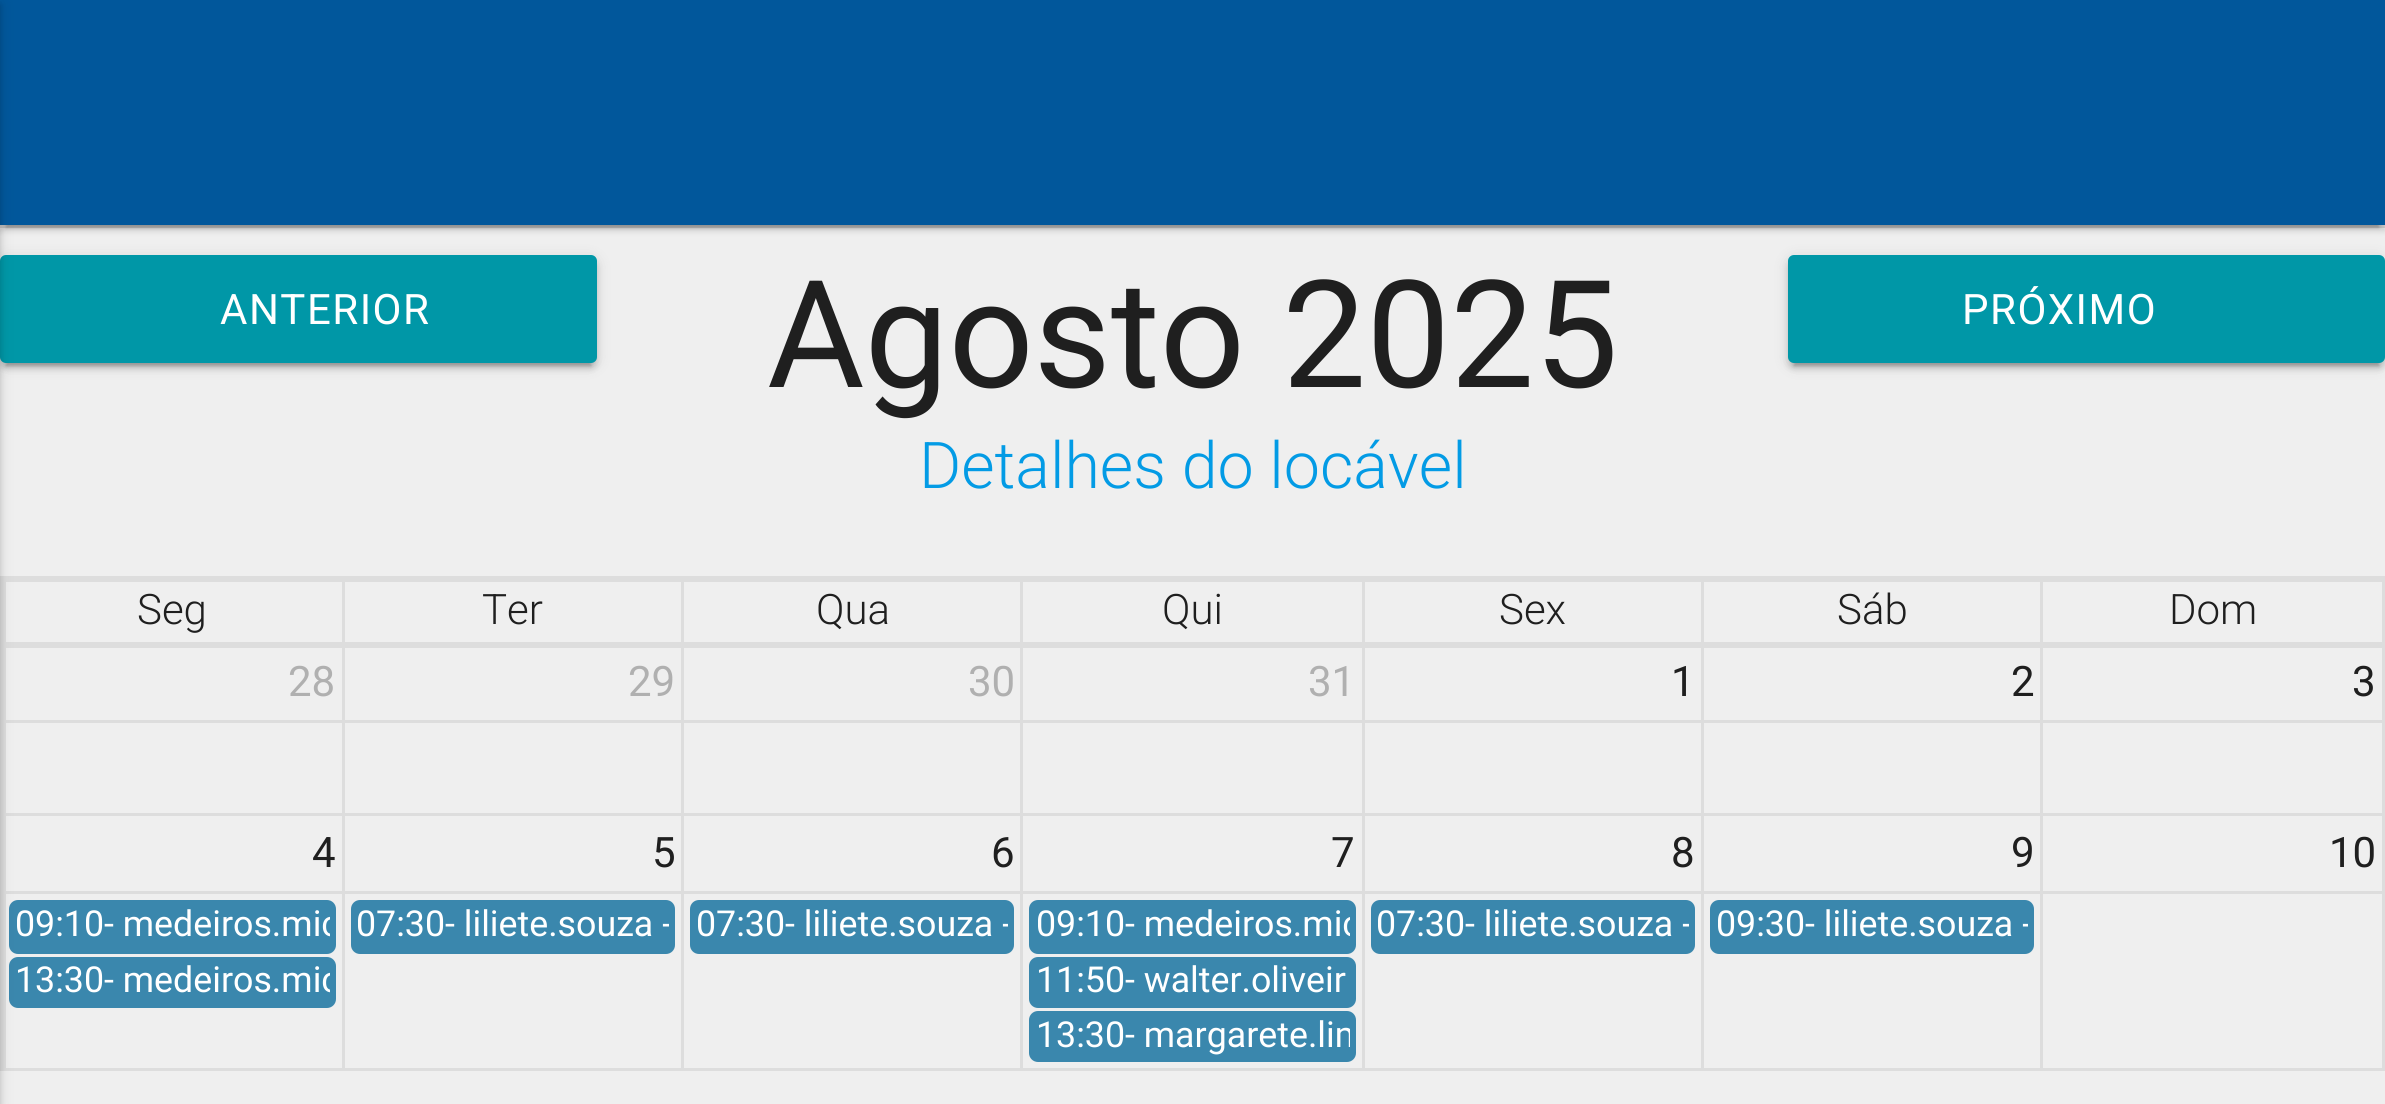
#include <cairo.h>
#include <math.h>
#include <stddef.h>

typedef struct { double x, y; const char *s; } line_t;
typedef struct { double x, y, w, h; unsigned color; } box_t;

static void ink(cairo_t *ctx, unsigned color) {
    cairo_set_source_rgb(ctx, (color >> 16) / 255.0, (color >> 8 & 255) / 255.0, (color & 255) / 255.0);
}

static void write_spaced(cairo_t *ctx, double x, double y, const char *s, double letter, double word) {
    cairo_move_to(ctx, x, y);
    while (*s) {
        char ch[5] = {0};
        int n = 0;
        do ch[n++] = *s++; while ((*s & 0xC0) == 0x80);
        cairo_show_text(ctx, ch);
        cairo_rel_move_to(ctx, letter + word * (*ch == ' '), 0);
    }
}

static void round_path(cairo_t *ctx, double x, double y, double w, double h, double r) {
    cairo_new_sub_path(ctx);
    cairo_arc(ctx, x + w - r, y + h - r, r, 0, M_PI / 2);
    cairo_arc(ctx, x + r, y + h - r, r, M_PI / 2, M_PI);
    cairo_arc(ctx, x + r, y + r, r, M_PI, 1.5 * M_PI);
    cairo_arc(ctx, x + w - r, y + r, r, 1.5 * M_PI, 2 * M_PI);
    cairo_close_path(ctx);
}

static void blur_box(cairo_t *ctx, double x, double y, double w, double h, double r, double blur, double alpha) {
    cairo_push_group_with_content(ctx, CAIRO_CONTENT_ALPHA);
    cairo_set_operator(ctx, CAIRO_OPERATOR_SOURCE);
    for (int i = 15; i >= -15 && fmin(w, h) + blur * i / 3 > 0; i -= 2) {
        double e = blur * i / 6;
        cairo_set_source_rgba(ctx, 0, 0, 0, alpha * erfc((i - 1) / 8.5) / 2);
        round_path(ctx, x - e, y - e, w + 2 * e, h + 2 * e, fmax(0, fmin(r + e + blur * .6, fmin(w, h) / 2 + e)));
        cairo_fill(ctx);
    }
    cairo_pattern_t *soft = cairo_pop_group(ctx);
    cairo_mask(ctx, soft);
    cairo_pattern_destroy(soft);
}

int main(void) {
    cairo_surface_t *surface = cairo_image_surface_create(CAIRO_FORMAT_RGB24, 2385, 1104);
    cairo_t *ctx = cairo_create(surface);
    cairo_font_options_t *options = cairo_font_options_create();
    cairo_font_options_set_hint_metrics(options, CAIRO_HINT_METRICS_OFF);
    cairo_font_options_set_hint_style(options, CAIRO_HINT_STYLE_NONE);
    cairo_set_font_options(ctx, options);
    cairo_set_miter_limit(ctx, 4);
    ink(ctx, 0xEFEFEF);
    cairo_paint(ctx);
    ink(ctx, 0x000000);
    blur_box(ctx, 6, -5, 2373, 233, 0, 1.5, 0.2);
    cairo_set_source_rgba(ctx, 0, 0, 0, 0.12);
    cairo_rectangle(ctx, 0, 225, 2385, 3);
    cairo_fill(ctx);
    ink(ctx, 0x000000);
    blur_box(ctx, 0, -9, 2385, 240, 0, 3, 0.14);
    ink(ctx, 0x01579B);
    cairo_rectangle(ctx, 0, 0, 2385, 225);
    cairo_fill(ctx);
    ink(ctx, 0x000000);
    blur_box(ctx, 6, 270, 585, 96, 0, 1.5, 0.2);
    blur_box(ctx, 0, 258, 597, 108, 6, 7.5, 0.12);
    blur_box(ctx, 0, 261, 597, 108, 6, 3, 0.14);
    ink(ctx, 0x0097A7);
    round_path(ctx, 0, 255, 597, 108, 6);
    cairo_fill(ctx);
    {
        static const box_t items[] = {
            {0, 642, 2385, 3, 0xDDDDDD},
            {0, 576, 2385, 3, 0xDDDDDD},
            {2382, 642, 3, 429, 0xDDDDDD},
            {0, 1068, 2385, 3, 0xDDDDDD},
            {0, 642, 3, 429, 0xDDDDDD},
            {0, 576, 3, 69, 0xDDDDDD},
            {2382, 576, 3, 69, 0xDDDDDD},
            {2040, 579, 345, 3, 0xDDDDDD},
            {2040, 579, 3, 66, 0xDDDDDD},
            {1701, 579, 342, 3, 0xDDDDDD},
            {1701, 579, 3, 66, 0xDDDDDD},
            {1362, 579, 342, 3, 0xDDDDDD},
            {1362, 579, 3, 66, 0xDDDDDD},
            {1020, 579, 345, 3, 0xDDDDDD},
            {1020, 579, 3, 66, 0xDDDDDD},
            {681, 579, 342, 3, 0xDDDDDD},
            {681, 579, 3, 66, 0xDDDDDD},
            {342, 579, 342, 3, 0xDDDDDD},
            {342, 579, 3, 66, 0xDDDDDD},
            {3, 579, 342, 3, 0xDDDDDD},
            {3, 579, 3, 66, 0xDDDDDD},
            {2040, 645, 342, 3, 0xDDDDDD},
            {2040, 813, 342, 3, 0xDDDDDD},
            {2040, 645, 3, 171, 0xDDDDDD},
            {1701, 645, 342, 3, 0xDDDDDD},
            {1701, 813, 342, 3, 0xDDDDDD},
            {1701, 645, 3, 171, 0xDDDDDD},
            {1362, 645, 342, 3, 0xDDDDDD},
            {1362, 813, 342, 3, 0xDDDDDD},
            {1362, 645, 3, 171, 0xDDDDDD},
            {1020, 645, 345, 3, 0xDDDDDD},
            {1020, 813, 345, 3, 0xDDDDDD},
            {1020, 645, 3, 171, 0xDDDDDD},
            {681, 645, 342, 3, 0xDDDDDD},
            {681, 813, 342, 3, 0xDDDDDD},
            {681, 645, 3, 171, 0xDDDDDD},
            {342, 645, 342, 3, 0xDDDDDD},
            {342, 813, 342, 3, 0xDDDDDD},
            {342, 645, 3, 171, 0xDDDDDD},
            {3, 645, 342, 3, 0xDDDDDD},
            {3, 813, 342, 3, 0xDDDDDD},
            {3, 645, 3, 423, 0xDDDDDD},
            {3, 720, 2379, 3, 0xDDDDDD},
            {342, 813, 3, 255, 0xDDDDDD},
            {681, 813, 3, 255, 0xDDDDDD},
            {1020, 813, 3, 255, 0xDDDDDD},
            {1362, 813, 3, 255, 0xDDDDDD},
            {1701, 813, 3, 255, 0xDDDDDD},
            {2040, 813, 3, 255, 0xDDDDDD},
            {3, 891, 2379, 3, 0xDDDDDD},
        };
        for (size_t i = 0; i < sizeof items / sizeof *items; i++) {
            ink(ctx, items[i].color);
            cairo_rectangle(ctx, items[i].x, items[i].y, items[i].w, items[i].h);
            cairo_fill(ctx);
        }
    }
    ink(ctx, 0x3A87AD);
    round_path(ctx, 10.5, 901.5, 324, 51, 7.5);
    cairo_fill_preserve(ctx);
    cairo_set_line_width(ctx, 3);
    cairo_stroke(ctx);
    round_path(ctx, 10.5, 958.5, 324, 48, 7.5);
    cairo_fill_preserve(ctx);
    cairo_stroke(ctx);
    ink(ctx, 0x000000);
    blur_box(ctx, -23, 3, 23, 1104, 0, 7.5, 0.12);
    blur_box(ctx, -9, 6, 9, 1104, 0, 3, 0.14);
    cairo_select_font_face(ctx, "Roboto", CAIRO_FONT_SLANT_NORMAL, CAIRO_FONT_WEIGHT_NORMAL);
    cairo_set_font_size(ctx, 42);
    ink(ctx, 0xFFFFFF);
    write_spaced(ctx, 220, 324, "ANTERIOR", 1.5, 0);
    cairo_set_font_size(ctx, 149.5);
    ink(ctx, 0x1F1F1F);
    cairo_move_to(ctx, 767, 387);
    cairo_show_text(ctx, "Agosto 2025");
    cairo_select_font_face(ctx, "Roboto Light", CAIRO_FONT_SLANT_NORMAL, CAIRO_FONT_WEIGHT_NORMAL);
    cairo_set_font_size(ctx, 64.5);
    ink(ctx, 0x039BE5);
    cairo_move_to(ctx, 919, 488);
    cairo_show_text(ctx, "Detalhes do locável");
    ink(ctx, 0x000000);
    blur_box(ctx, 1794, 270, 585, 96, 0, 1.5, 0.2);
    blur_box(ctx, 1788, 258, 597, 108, 6, 7.5, 0.12);
    blur_box(ctx, 1788, 261, 597, 108, 6, 3, 0.14);
    ink(ctx, 0x0097A7);
    round_path(ctx, 1788, 255, 597, 108, 6);
    cairo_fill(ctx);
    cairo_select_font_face(ctx, "Roboto", CAIRO_FONT_SLANT_NORMAL, CAIRO_FONT_WEIGHT_NORMAL);
    cairo_set_font_size(ctx, 42);
    ink(ctx, 0xFFFFFF);
    write_spaced(ctx, 1962, 324, "PRÓXIMO", 1.5, 0);
    cairo_select_font_face(ctx, "Roboto Light", CAIRO_FONT_SLANT_NORMAL, CAIRO_FONT_WEIGHT_NORMAL);
    ink(ctx, 0x1F1F1F);
    {
        static const line_t items[] = {
            {137, 624, "Seg"},
            {482, 624, "Ter"},
            {816, 624, "Qua"},
            {1162, 624, "Qui"},
            {1499, 624, "Sex"},
            {1837, 624, "Sáb"},
            {2169, 624, "Dom"},
        };
        for (size_t i = 0; i < sizeof items / sizeof *items; i++) {
            cairo_move_to(ctx, items[i].x, items[i].y);
            cairo_show_text(ctx, items[i].s);
        }
    }
    cairo_select_font_face(ctx, "Roboto", CAIRO_FONT_SLANT_NORMAL, CAIRO_FONT_WEIGHT_NORMAL);
    ink(ctx, 0xB0B0B0);
    {
        static const line_t items[] = {
            {288, 696, "28"},
            {628, 696, "29"},
            {968, 696, "30"},
            {1308, 696, "31"},
        };
        for (size_t i = 0; i < sizeof items / sizeof *items; i++) {
            cairo_move_to(ctx, items[i].x, items[i].y);
            cairo_show_text(ctx, items[i].s);
        }
    }
    ink(ctx, 0x1F1F1F);
    {
        static const line_t items[] = {
            {1671, 696, "1"},
            {2011, 696, "2"},
            {2352, 696, "3"},
            {312, 867, "4"},
            {652, 867, "5"},
            {991, 867, "6"},
            {1331, 867, "7"},
            {1671, 867, "8"},
            {2011, 867, "9"},
            {2329, 867, "10"},
        };
        for (size_t i = 0; i < sizeof items / sizeof *items; i++) {
            cairo_move_to(ctx, items[i].x, items[i].y);
            cairo_show_text(ctx, items[i].s);
        }
    }
    cairo_save(ctx);
    cairo_rectangle(ctx, 15, 903, 315, 48);
    cairo_clip(ctx);
    cairo_set_font_size(ctx, 35.75);
    ink(ctx, 0xFFFFFF);
    cairo_move_to(ctx, 15, 936);
    cairo_show_text(ctx, "09:10- medeiros.mic");
    cairo_restore(ctx);
    ink(ctx, 0x3A87AD);
    round_path(ctx, 352.5, 901.5, 321, 51, 7.5);
    cairo_fill_preserve(ctx);
    cairo_stroke(ctx);
    cairo_save(ctx);
    cairo_rectangle(ctx, 357, 903, 312, 48);
    cairo_clip(ctx);
    cairo_set_font_size(ctx, 35.75);
    ink(ctx, 0xFFFFFF);
    cairo_move_to(ctx, 356, 936);
    cairo_show_text(ctx, "07:30- liliete.souza -");
    cairo_restore(ctx);
    round_path(ctx, 691.5, 901.5, 321, 51, 7.5);
    cairo_fill_preserve(ctx);
    cairo_stroke(ctx);
    cairo_save(ctx);
    cairo_rectangle(ctx, 696, 903, 312, 48);
    cairo_clip(ctx);
    cairo_set_font_size(ctx, 35.75);
    ink(ctx, 0xFFFFFF);
    cairo_move_to(ctx, 696, 936);
    cairo_show_text(ctx, "07:30- liliete.souza -");
    cairo_restore(ctx);
    round_path(ctx, 1030.5, 901.5, 324, 51, 7.5);
    cairo_fill_preserve(ctx);
    cairo_stroke(ctx);
    cairo_save(ctx);
    cairo_rectangle(ctx, 1035, 903, 315, 48);
    cairo_clip(ctx);
    cairo_set_font_size(ctx, 35.75);
    ink(ctx, 0xFFFFFF);
    cairo_move_to(ctx, 1036, 936);
    cairo_show_text(ctx, "09:10- medeiros.mic");
    cairo_restore(ctx);
    round_path(ctx, 1372.5, 901.5, 321, 51, 7.5);
    cairo_fill_preserve(ctx);
    cairo_stroke(ctx);
    cairo_save(ctx);
    cairo_rectangle(ctx, 1377, 903, 312, 48);
    cairo_clip(ctx);
    cairo_set_font_size(ctx, 35.75);
    ink(ctx, 0xFFFFFF);
    cairo_move_to(ctx, 1376, 936);
    cairo_show_text(ctx, "07:30- liliete.souza -");
    cairo_restore(ctx);
    round_path(ctx, 1711.5, 901.5, 321, 51, 7.5);
    cairo_fill_preserve(ctx);
    cairo_stroke(ctx);
    cairo_save(ctx);
    cairo_rectangle(ctx, 1716, 903, 312, 48);
    cairo_clip(ctx);
    cairo_set_font_size(ctx, 35.75);
    ink(ctx, 0xFFFFFF);
    cairo_move_to(ctx, 1716, 936);
    cairo_show_text(ctx, "09:30- liliete.souza -");
    cairo_restore(ctx);
    cairo_save(ctx);
    cairo_rectangle(ctx, 15, 960, 315, 45);
    cairo_clip(ctx);
    cairo_set_font_size(ctx, 35.75);
    ink(ctx, 0xFFFFFF);
    cairo_move_to(ctx, 15, 992);
    cairo_show_text(ctx, "13:30- medeiros.mic");
    cairo_restore(ctx);
    round_path(ctx, 1030.5, 958.5, 324, 48, 7.5);
    cairo_fill_preserve(ctx);
    cairo_stroke(ctx);
    cairo_set_font_size(ctx, 35.75);
    ink(ctx, 0xFFFFFF);
    cairo_move_to(ctx, 1036, 992);
    cairo_show_text(ctx, "11:50- walter.oliveir");
    ink(ctx, 0x3A87AD);
    round_path(ctx, 1030.5, 1012.5, 324, 48, 7.5);
    cairo_fill_preserve(ctx);
    cairo_stroke(ctx);
    cairo_save(ctx);
    cairo_rectangle(ctx, 1035, 1014, 315, 45);
    cairo_clip(ctx);
    ink(ctx, 0xFFFFFF);
    cairo_move_to(ctx, 1036, 1047);
    cairo_show_text(ctx, "13:30- margarete.lim");
    cairo_restore(ctx);
    cairo_surface_write_to_png(surface, "image.png");
    cairo_font_options_destroy(options);
    cairo_destroy(ctx);
    cairo_surface_destroy(surface);
    return 0;
}
